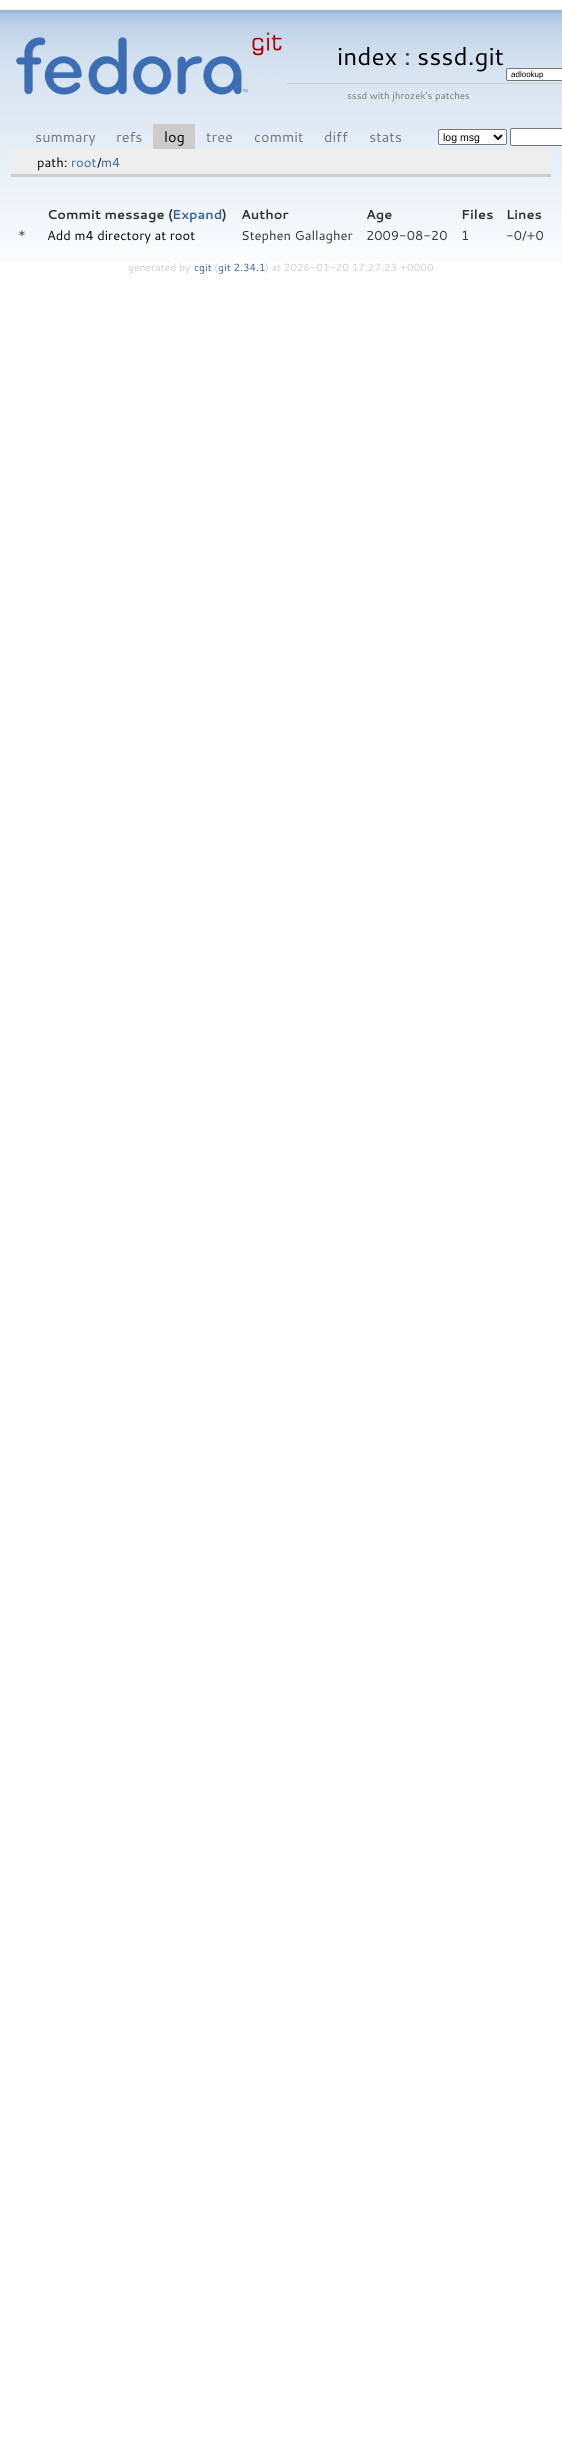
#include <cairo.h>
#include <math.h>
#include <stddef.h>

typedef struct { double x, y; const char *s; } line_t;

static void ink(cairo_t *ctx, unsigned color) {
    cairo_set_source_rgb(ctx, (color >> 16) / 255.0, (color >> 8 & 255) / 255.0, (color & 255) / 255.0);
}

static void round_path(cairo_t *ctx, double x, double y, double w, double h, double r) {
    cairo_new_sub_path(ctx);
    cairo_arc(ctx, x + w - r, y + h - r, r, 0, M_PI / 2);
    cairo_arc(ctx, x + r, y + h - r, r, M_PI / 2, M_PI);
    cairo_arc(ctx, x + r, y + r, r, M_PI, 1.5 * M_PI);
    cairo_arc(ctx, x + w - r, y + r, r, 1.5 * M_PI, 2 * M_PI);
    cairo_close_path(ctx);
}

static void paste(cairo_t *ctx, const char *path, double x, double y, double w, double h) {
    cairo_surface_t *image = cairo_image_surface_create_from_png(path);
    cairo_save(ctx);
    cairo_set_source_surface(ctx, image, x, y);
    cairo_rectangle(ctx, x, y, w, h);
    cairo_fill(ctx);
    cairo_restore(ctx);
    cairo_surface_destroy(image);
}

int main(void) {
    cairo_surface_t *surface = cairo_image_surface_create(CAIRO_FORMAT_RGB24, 562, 2455);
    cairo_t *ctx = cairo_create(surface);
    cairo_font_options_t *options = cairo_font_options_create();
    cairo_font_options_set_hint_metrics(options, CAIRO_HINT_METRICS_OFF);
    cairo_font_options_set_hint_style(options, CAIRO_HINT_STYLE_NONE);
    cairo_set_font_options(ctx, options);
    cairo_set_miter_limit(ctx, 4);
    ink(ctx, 0xFFFFFF);
    cairo_paint(ctx);
    paste(ctx, "media/1.png", 0, 10, 562, 252);
    paste(ctx, "media/2.png", 16, 32, 266, 63);
    cairo_select_font_face(ctx, "Cantarell", CAIRO_FONT_SLANT_NORMAL, CAIRO_FONT_WEIGHT_NORMAL);
    cairo_set_font_size(ctx, 24.5);
    ink(ctx, 0x000000);
    cairo_move_to(ctx, 337, 65);
    cairo_show_text(ctx, "index");
    ink(ctx, 0x2E3436);
    cairo_move_to(ctx, 404, 65);
    cairo_show_text(ctx, ":");
    ink(ctx, 0x000000);
    cairo_move_to(ctx, 417, 65);
    cairo_show_text(ctx, "sssd.git");
    ink(ctx, 0xFFFFFF);
    round_path(ctx, 506.5, 68.5, 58, 12, 1.5);
    cairo_fill_preserve(ctx);
    ink(ctx, 0x767676);
    cairo_set_line_width(ctx, 1);
    cairo_stroke(ctx);
    cairo_select_font_face(ctx, "Liberation Sans", CAIRO_FONT_SLANT_NORMAL, CAIRO_FONT_WEIGHT_NORMAL);
    cairo_set_font_size(ctx, 8);
    ink(ctx, 0x000000);
    cairo_move_to(ctx, 511, 77);
    cairo_show_text(ctx, "adlookup");
    ink(ctx, 0xCCCCCC);
    cairo_rectangle(ctx, 287, 83, 275, 1);
    cairo_fill(ctx);
    cairo_select_font_face(ctx, "Cantarell", CAIRO_FONT_SLANT_NORMAL, CAIRO_FONT_WEIGHT_NORMAL);
    cairo_set_font_size(ctx, 9.75);
    ink(ctx, 0x777777);
    cairo_move_to(ctx, 347, 99);
    cairo_show_text(ctx, "sssd with jhrozek's patches");
    cairo_set_font_size(ctx, 14.5);
    cairo_move_to(ctx, 35, 142);
    cairo_show_text(ctx, "summary");
    cairo_move_to(ctx, 116, 142);
    cairo_show_text(ctx, "refs");
    ink(ctx, 0xEEEEEE);
    cairo_rectangle(ctx, 11, 148, 540, 26);
    cairo_fill(ctx);
    ink(ctx, 0xCCCCCC);
    cairo_rectangle(ctx, 153, 124, 42, 25);
    cairo_fill(ctx);
    ink(ctx, 0x000000);
    cairo_move_to(ctx, 164, 142);
    cairo_show_text(ctx, "log");
    ink(ctx, 0x777777);
    {
        static const line_t items[] = {
            {206, 142, "tree"},
            {254, 142, "commit"},
            {324, 142, "diff"},
            {369, 142, "stats"},
        };
        for (size_t i = 0; i < sizeof items / sizeof *items; i++) {
            cairo_move_to(ctx, items[i].x, items[i].y);
            cairo_show_text(ctx, items[i].s);
        }
    }
    ink(ctx, 0xFFFFFF);
    round_path(ctx, 438.5, 129.5, 68, 15, 1.5);
    cairo_fill_preserve(ctx);
    ink(ctx, 0x767676);
    cairo_stroke(ctx);
    cairo_new_path(ctx);
    cairo_move_to(ctx, 494, 135);
    cairo_line_to(ctx, 498, 139);
    cairo_line_to(ctx, 502, 135);
    ink(ctx, 0x000000);
    cairo_set_line_width(ctx, 2);
    cairo_stroke(ctx);
    cairo_select_font_face(ctx, "Liberation Sans", CAIRO_FONT_SLANT_NORMAL, CAIRO_FONT_WEIGHT_NORMAL);
    cairo_set_font_size(ctx, 10.5);
    cairo_move_to(ctx, 443, 141);
    cairo_show_text(ctx, "log msg");
    ink(ctx, 0xFFFFFF);
    round_path(ctx, 510.5, 128.5, 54, 17, 1.5);
    cairo_fill_preserve(ctx);
    ink(ctx, 0x767676);
    cairo_set_line_width(ctx, 1);
    cairo_stroke(ctx);
    cairo_select_font_face(ctx, "Cantarell", CAIRO_FONT_SLANT_NORMAL, CAIRO_FONT_WEIGHT_NORMAL);
    cairo_set_font_size(ctx, 13);
    ink(ctx, 0x000000);
    cairo_move_to(ctx, 37, 167);
    cairo_show_text(ctx, "path:");
    ink(ctx, 0x3465A4);
    cairo_move_to(ctx, 71, 167);
    cairo_show_text(ctx, "root");
    ink(ctx, 0x000000);
    cairo_move_to(ctx, 97, 167);
    cairo_show_text(ctx, "/");
    ink(ctx, 0x3465A4);
    cairo_move_to(ctx, 101, 167);
    cairo_show_text(ctx, "m4");
    ink(ctx, 0xCCCCCC);
    cairo_rectangle(ctx, 11, 174, 540, 3);
    cairo_fill(ctx);
    cairo_select_font_face(ctx, "Cantarell", CAIRO_FONT_SLANT_NORMAL, CAIRO_FONT_WEIGHT_BOLD);
    ink(ctx, 0x2E3436);
    cairo_move_to(ctx, 47, 219);
    cairo_show_text(ctx, "Commit message (");
    ink(ctx, 0x3465A4);
    cairo_move_to(ctx, 172, 219);
    cairo_show_text(ctx, "Expand");
    ink(ctx, 0x2E3436);
    {
        static const line_t items[] = {
            {222, 219, ")"},
            {241, 219, "Author"},
            {366, 219, "Age"},
            {461, 219, "Files"},
            {506, 219, "Lines"},
        };
        for (size_t i = 0; i < sizeof items / sizeof *items; i++) {
            cairo_move_to(ctx, items[i].x, items[i].y);
            cairo_show_text(ctx, items[i].s);
        }
    }
    cairo_select_font_face(ctx, "DejaVu Sans Mono", CAIRO_FONT_SLANT_NORMAL, CAIRO_FONT_WEIGHT_NORMAL);
    cairo_move_to(ctx, 18, 240);
    cairo_show_text(ctx, "*");
    cairo_select_font_face(ctx, "Cantarell", CAIRO_FONT_SLANT_NORMAL, CAIRO_FONT_WEIGHT_NORMAL);
    ink(ctx, 0x000000);
    cairo_move_to(ctx, 47, 240);
    cairo_show_text(ctx, "Add m4 directory at root");
    ink(ctx, 0x2E3436);
    {
        static const line_t items[] = {
            {241, 240, "Stephen Gallagher"},
            {366, 240, "2009-08-20"},
            {461, 240, "1"},
            {506, 240, "-0/+0"},
        };
        for (size_t i = 0; i < sizeof items / sizeof *items; i++) {
            cairo_move_to(ctx, items[i].x, items[i].y);
            cairo_show_text(ctx, items[i].s);
        }
    }
    cairo_set_font_size(ctx, 10.4);
    ink(ctx, 0xCCCCCC);
    cairo_move_to(ctx, 128, 271);
    cairo_show_text(ctx, "generated by");
    ink(ctx, 0x3465A4);
    cairo_move_to(ctx, 194, 271);
    cairo_show_text(ctx, "cgit");
    ink(ctx, 0xCCCCCC);
    cairo_move_to(ctx, 214, 271);
    cairo_show_text(ctx, "(");
    ink(ctx, 0x3465A4);
    cairo_move_to(ctx, 218, 271);
    cairo_show_text(ctx, "git 2.34.1");
    ink(ctx, 0xCCCCCC);
    cairo_move_to(ctx, 265, 271);
    cairo_show_text(ctx, ") at 2026-01-20 17:27:23 +0000");
    cairo_surface_write_to_png(surface, "image.png");
    cairo_font_options_destroy(options);
    cairo_destroy(ctx);
    cairo_surface_destroy(surface);
    return 0;
}
